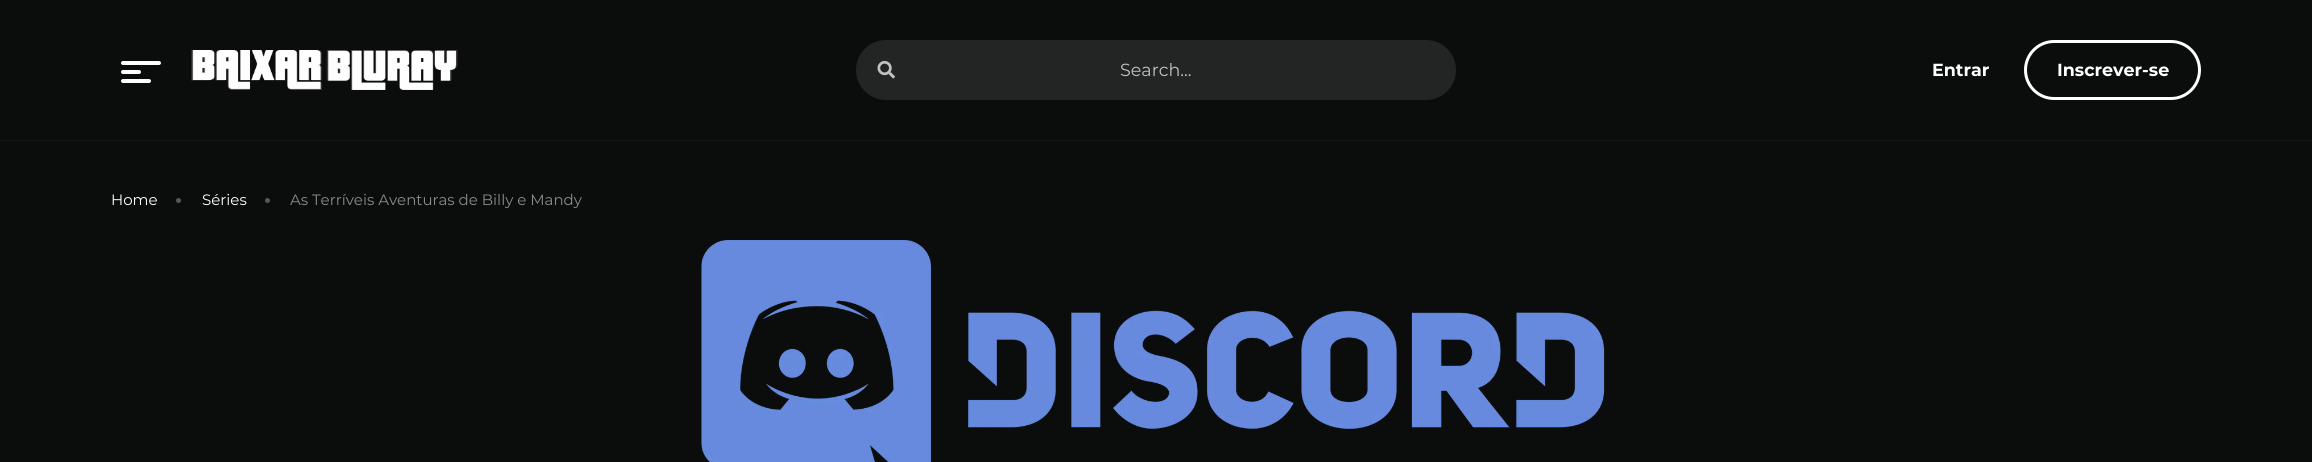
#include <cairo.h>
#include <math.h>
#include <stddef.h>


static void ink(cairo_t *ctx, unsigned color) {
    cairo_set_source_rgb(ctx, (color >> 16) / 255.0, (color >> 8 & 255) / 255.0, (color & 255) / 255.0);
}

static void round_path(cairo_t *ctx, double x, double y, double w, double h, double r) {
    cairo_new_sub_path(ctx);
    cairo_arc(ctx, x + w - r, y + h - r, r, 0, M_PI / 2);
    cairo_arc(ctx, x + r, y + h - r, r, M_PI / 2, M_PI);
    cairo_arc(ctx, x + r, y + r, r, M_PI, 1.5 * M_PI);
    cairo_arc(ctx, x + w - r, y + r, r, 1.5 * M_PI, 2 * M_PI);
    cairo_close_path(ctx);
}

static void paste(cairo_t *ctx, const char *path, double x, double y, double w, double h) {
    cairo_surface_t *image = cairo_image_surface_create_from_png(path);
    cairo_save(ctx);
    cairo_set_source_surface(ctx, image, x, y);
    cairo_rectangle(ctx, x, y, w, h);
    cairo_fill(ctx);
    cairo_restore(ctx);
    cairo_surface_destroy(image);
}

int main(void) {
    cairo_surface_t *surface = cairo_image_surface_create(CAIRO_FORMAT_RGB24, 2312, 462);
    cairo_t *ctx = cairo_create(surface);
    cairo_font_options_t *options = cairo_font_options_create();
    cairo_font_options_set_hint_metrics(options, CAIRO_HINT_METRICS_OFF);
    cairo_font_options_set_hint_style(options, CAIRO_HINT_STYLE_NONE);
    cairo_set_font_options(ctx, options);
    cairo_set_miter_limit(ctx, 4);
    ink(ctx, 0x0B0C0C);
    cairo_paint(ctx);
    ink(ctx, 0x171818);
    cairo_rectangle(ctx, 0, 140, 2312, 1);
    cairo_fill(ctx);
    ink(ctx, 0xFFFFFF);
    round_path(ctx, 121, 61, 40, 4, 2);
    cairo_fill(ctx);
    round_path(ctx, 121, 70, 20, 4, 2);
    cairo_fill(ctx);
    round_path(ctx, 121, 79, 30, 4, 2);
    cairo_fill(ctx);
    paste(ctx, "media/1.png", 191, 50, 267, 40);
    ink(ctx, 0x232424);
    round_path(ctx, 856, 40, 600, 60, 30);
    cairo_fill(ctx);
    paste(ctx, "media/2.png", 877, 60, 18, 19);
    cairo_select_font_face(ctx, "Montserrat", CAIRO_FONT_SLANT_NORMAL, CAIRO_FONT_WEIGHT_NORMAL);
    cairo_set_font_size(ctx, 17.5);
    ink(ctx, 0xBFC1C3);
    cairo_move_to(ctx, 1120, 76);
    cairo_show_text(ctx, "Search...");
    cairo_select_font_face(ctx, "Montserrat", CAIRO_FONT_SLANT_NORMAL, CAIRO_FONT_WEIGHT_BOLD);
    ink(ctx, 0xFFFFFF);
    cairo_move_to(ctx, 1932, 76);
    cairo_show_text(ctx, "Entrar");
    round_path(ctx, 2025.5, 41.5, 174, 57, 28.5);
    cairo_set_line_width(ctx, 3);
    cairo_stroke(ctx);
    cairo_move_to(ctx, 2057, 76);
    cairo_show_text(ctx, "Inscrever-se");
    cairo_select_font_face(ctx, "Montserrat", CAIRO_FONT_SLANT_NORMAL, CAIRO_FONT_WEIGHT_NORMAL);
    cairo_set_font_size(ctx, 15);
    cairo_move_to(ctx, 111, 205);
    cairo_show_text(ctx, "Home");
    ink(ctx, 0x51575A);
    cairo_new_path(ctx);
    cairo_arc(ctx, 178.5, 200.5, 2.5, 0, 2 * M_PI);
    cairo_fill(ctx);
    ink(ctx, 0xFFFFFF);
    cairo_move_to(ctx, 202, 205);
    cairo_show_text(ctx, "Séries");
    ink(ctx, 0x51575A);
    cairo_new_path(ctx);
    cairo_arc(ctx, 267.5, 200.5, 2.5, 0, 2 * M_PI);
    cairo_fill(ctx);
    ink(ctx, 0x898B8C);
    cairo_move_to(ctx, 290, 205);
    cairo_show_text(ctx, "As Terríveis Aventuras de Billy e Mandy");
    paste(ctx, "media/3.png", 701, 240, 904, 222);
    cairo_surface_write_to_png(surface, "image.png");
    cairo_font_options_destroy(options);
    cairo_destroy(ctx);
    cairo_surface_destroy(surface);
    return 0;
}
